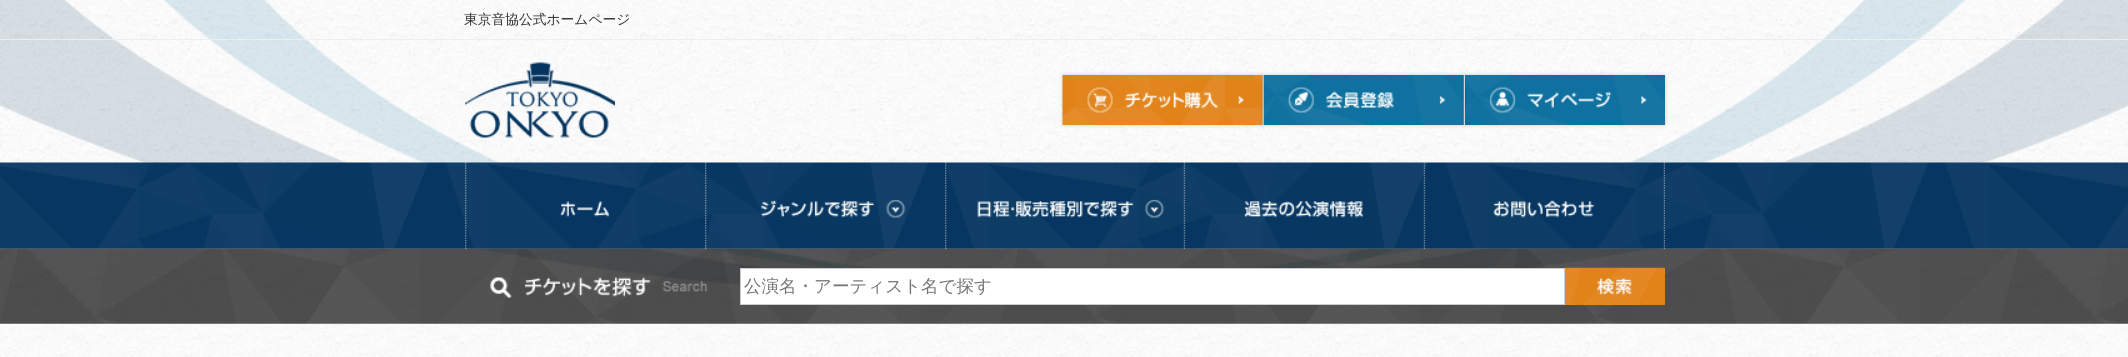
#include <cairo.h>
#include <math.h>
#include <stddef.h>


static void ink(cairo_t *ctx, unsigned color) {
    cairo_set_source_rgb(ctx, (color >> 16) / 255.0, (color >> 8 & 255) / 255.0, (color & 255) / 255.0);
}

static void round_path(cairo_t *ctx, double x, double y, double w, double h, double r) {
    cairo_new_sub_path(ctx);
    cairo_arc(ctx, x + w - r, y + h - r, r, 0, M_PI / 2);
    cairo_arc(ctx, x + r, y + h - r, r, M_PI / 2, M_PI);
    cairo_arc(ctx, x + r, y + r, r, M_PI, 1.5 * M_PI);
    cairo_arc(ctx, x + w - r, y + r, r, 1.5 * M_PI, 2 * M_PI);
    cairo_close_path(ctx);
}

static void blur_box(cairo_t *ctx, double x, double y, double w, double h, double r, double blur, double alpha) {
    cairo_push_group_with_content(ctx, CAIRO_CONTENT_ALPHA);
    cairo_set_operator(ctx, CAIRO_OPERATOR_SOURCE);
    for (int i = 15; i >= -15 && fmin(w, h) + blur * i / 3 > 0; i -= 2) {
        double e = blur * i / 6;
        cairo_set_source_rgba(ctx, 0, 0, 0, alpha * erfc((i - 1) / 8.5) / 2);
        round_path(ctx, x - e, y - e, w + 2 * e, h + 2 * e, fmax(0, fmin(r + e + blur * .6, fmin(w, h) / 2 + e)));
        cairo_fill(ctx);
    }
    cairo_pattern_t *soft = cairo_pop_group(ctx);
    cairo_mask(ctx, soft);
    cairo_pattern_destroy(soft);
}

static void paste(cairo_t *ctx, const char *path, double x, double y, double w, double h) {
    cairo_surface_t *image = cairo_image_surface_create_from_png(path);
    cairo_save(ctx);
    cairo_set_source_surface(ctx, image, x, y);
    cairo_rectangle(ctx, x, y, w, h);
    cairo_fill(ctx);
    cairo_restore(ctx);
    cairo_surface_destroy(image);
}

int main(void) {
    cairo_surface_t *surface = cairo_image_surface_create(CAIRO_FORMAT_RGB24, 2128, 357);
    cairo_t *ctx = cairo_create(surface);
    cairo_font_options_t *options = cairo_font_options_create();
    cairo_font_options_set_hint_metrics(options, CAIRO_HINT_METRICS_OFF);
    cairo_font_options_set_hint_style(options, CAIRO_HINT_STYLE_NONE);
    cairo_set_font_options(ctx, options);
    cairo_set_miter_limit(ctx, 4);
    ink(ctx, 0xFFFFFF);
    cairo_paint(ctx);
    paste(ctx, "media/1.png", 0, 0, 2128, 357);
    paste(ctx, "media/2.png", 0, 0, 2128, 285);
    ink(ctx, 0xEEEEEE);
    cairo_rectangle(ctx, 0, 39, 2128, 1);
    cairo_fill(ctx);
    cairo_select_font_face(ctx, "WenQuanYi Zen Hei Medium", CAIRO_FONT_SLANT_NORMAL, CAIRO_FONT_WEIGHT_NORMAL);
    cairo_set_font_size(ctx, 13.75);
    ink(ctx, 0x333333);
    cairo_move_to(ctx, 464, 24);
    cairo_show_text(ctx, "東京音協公式ホームページ");
    paste(ctx, "media/3.png", 465, 62, 150, 76);
    ink(ctx, 0x000000);
    blur_box(ctx, 1063, 75, 200, 50, 0, 2, 0.2);
    paste(ctx, "media/4.png", 1062, 75, 201, 50);
    blur_box(ctx, 1264, 75, 200, 50, 0, 2, 0.2);
    paste(ctx, "media/5.png", 1263, 75, 201, 50);
    blur_box(ctx, 1465, 75, 200, 50, 0, 2, 0.2);
    paste(ctx, "media/6.png", 1465, 75, 200, 50);
    paste(ctx, "media/7.png", 0, 162, 2128, 87);
    paste(ctx, "media/13.png", 0, 248, 2128, 76);
    paste(ctx, "media/8.png", 465, 162, 145, 87);
    paste(ctx, "media/9.png", 705, 162, 201, 87);
    paste(ctx, "media/10.png", 945, 162, 219, 87);
    paste(ctx, "media/11.png", 1183, 162, 181, 87);
    paste(ctx, "media/12.png", 1423, 162, 242, 87);
    paste(ctx, "media/14.png", 490, 277, 218, 21);
    ink(ctx, 0xFFFFFF);
    cairo_rectangle(ctx, 740.5, 268.5, 824, 36);
    cairo_fill_preserve(ctx);
    ink(ctx, 0xCCCCCC);
    cairo_set_line_width(ctx, 1);
    cairo_stroke(ctx);
    cairo_set_font_size(ctx, 17.5);
    ink(ctx, 0x757575);
    cairo_move_to(ctx, 744, 292);
    cairo_show_text(ctx, "公演名・アーティスト名で探す");
    paste(ctx, "media/15.png", 1565, 267, 100, 38);
    cairo_surface_write_to_png(surface, "image.png");
    cairo_font_options_destroy(options);
    cairo_destroy(ctx);
    cairo_surface_destroy(surface);
    return 0;
}
